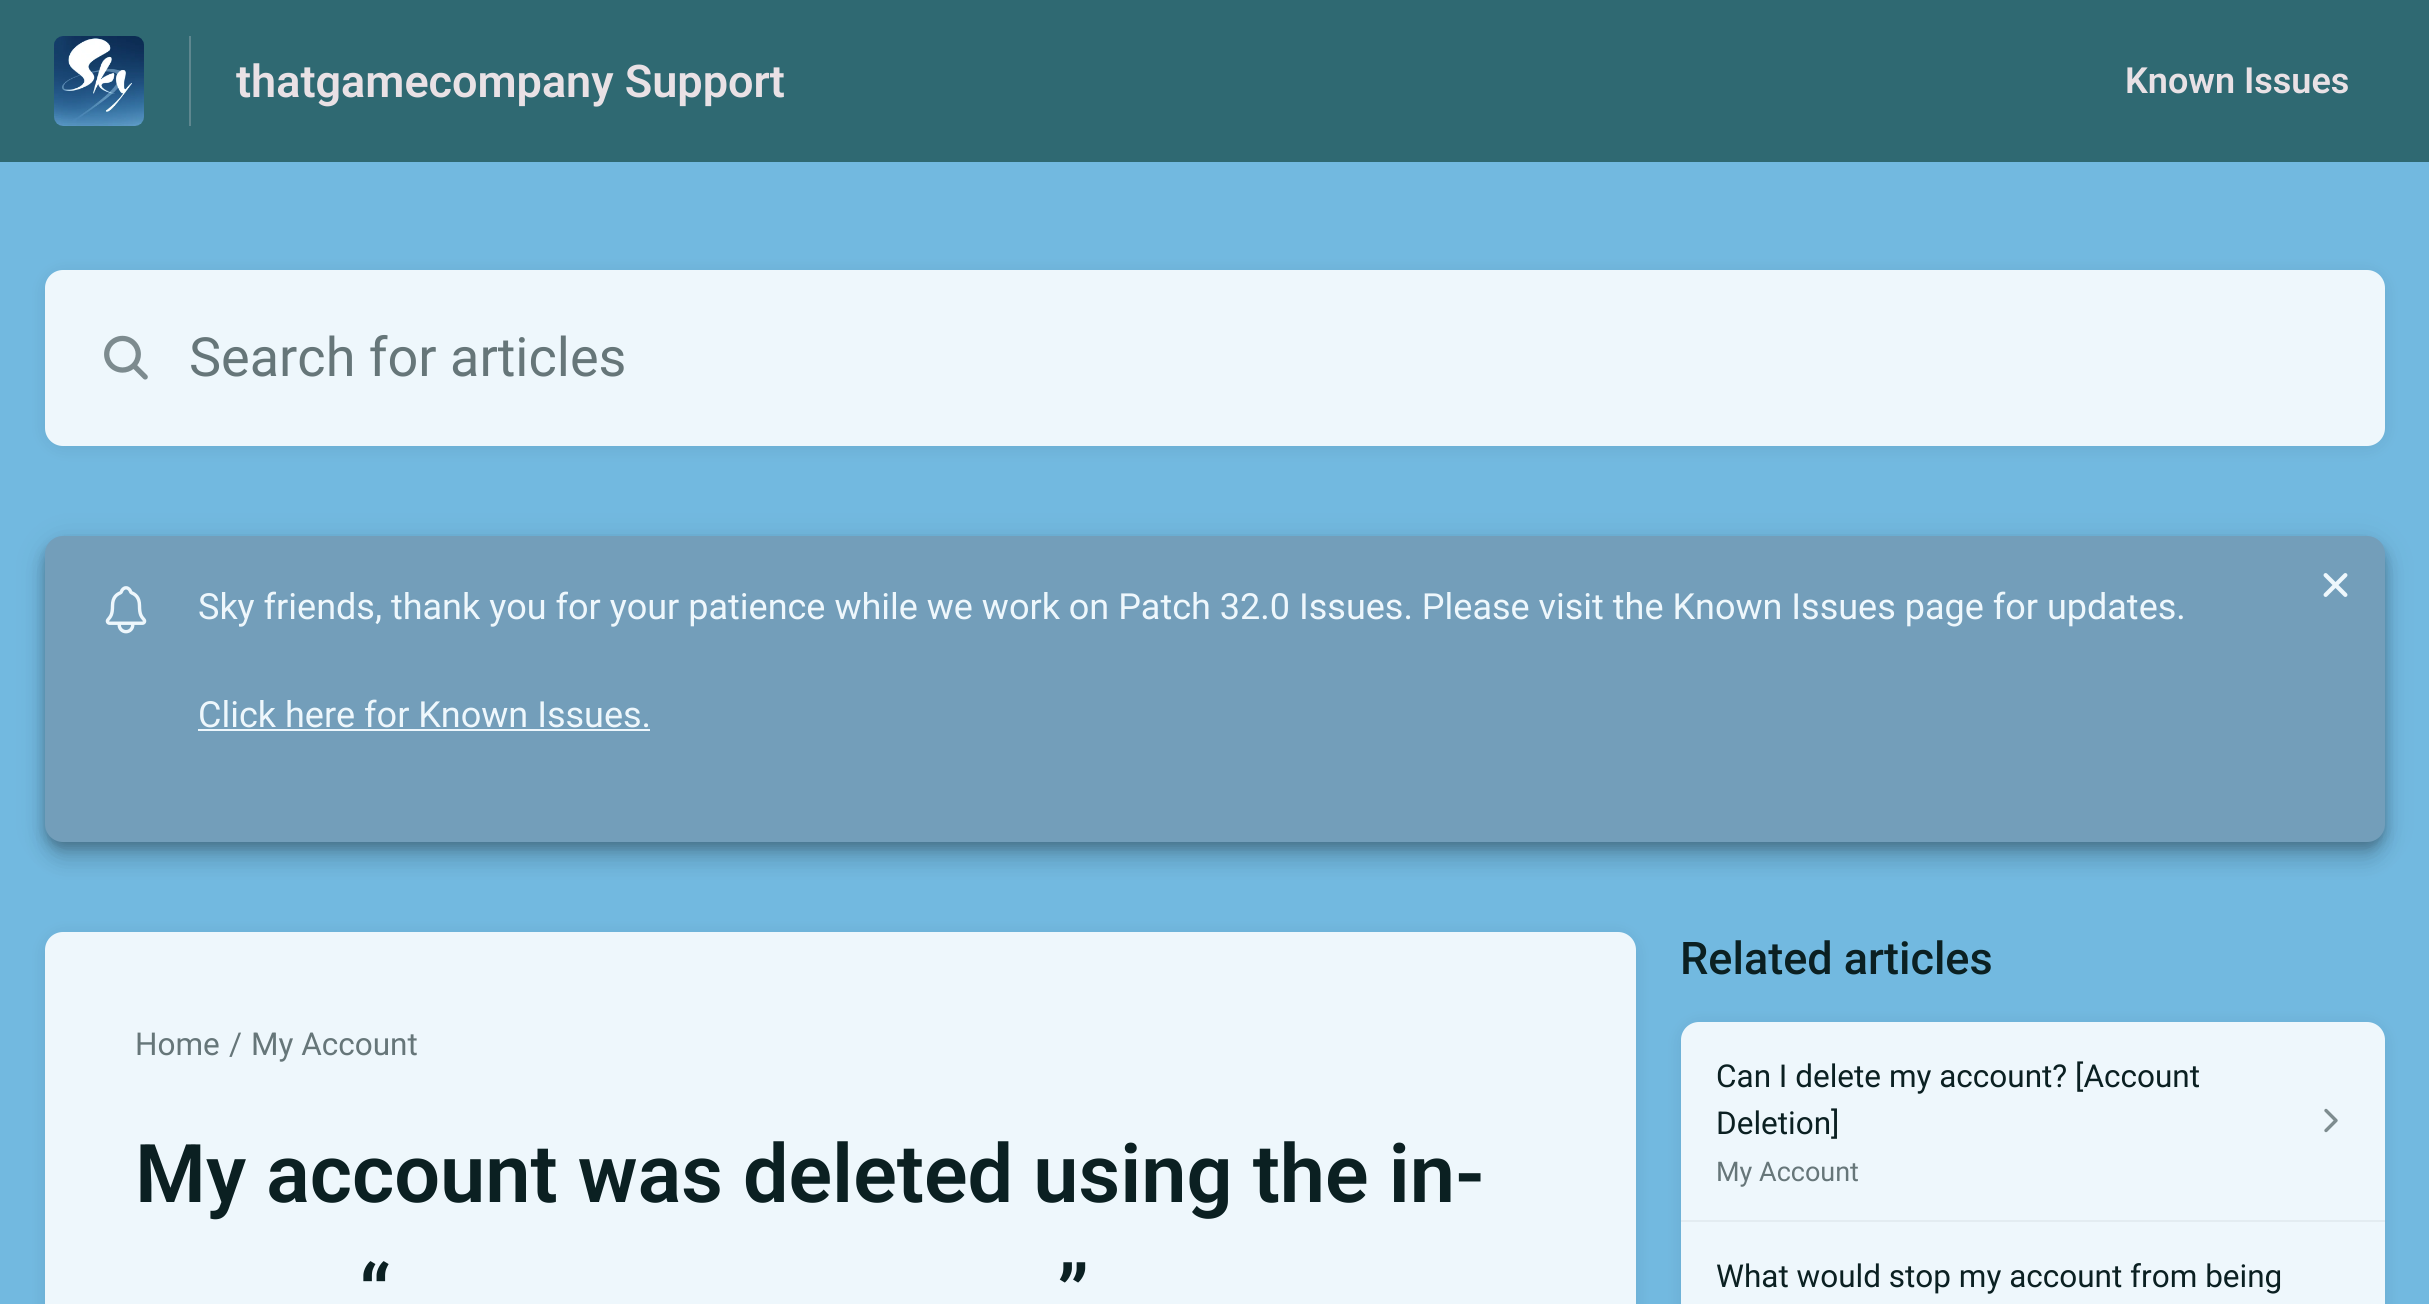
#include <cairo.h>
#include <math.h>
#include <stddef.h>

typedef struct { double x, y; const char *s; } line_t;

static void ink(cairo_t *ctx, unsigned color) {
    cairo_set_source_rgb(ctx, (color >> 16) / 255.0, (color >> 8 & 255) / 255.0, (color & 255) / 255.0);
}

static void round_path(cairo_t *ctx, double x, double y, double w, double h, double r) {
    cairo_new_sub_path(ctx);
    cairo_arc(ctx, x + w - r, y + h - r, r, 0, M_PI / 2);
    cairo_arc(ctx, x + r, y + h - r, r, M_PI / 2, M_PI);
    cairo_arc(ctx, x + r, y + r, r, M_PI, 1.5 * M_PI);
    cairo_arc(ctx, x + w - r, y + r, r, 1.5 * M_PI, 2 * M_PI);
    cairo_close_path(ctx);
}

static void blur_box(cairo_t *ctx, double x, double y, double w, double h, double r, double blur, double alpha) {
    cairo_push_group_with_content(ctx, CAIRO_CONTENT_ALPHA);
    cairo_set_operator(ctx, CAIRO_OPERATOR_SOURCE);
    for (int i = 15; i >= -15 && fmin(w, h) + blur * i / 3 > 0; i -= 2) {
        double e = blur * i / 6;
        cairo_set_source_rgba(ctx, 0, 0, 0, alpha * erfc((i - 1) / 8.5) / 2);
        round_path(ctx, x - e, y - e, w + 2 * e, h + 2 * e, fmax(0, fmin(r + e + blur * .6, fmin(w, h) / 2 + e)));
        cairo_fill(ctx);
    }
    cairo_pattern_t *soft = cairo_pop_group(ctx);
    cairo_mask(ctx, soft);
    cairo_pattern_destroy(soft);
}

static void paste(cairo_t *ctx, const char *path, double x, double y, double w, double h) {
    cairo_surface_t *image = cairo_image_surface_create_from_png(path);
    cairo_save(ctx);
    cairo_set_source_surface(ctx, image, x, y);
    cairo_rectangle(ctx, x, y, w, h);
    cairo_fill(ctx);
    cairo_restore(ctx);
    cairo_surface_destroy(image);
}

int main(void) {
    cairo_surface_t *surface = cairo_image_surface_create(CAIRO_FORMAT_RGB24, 2429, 1304);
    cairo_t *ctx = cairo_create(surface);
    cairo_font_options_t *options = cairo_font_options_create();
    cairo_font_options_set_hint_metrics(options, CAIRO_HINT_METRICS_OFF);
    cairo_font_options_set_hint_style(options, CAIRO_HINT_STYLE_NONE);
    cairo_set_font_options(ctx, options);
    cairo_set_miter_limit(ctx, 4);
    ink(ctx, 0x72B9E0);
    cairo_paint(ctx);
    ink(ctx, 0x2F6972);
    cairo_rectangle(ctx, 0, 0, 2429, 162);
    cairo_fill(ctx);
    ink(ctx, 0x5E878F);
    cairo_rectangle(ctx, 189, 36, 2, 90);
    cairo_fill(ctx);
    paste(ctx, "media/1.png", 54, 36, 90, 90);
    cairo_select_font_face(ctx, "Roboto SemiBold", CAIRO_FONT_SLANT_NORMAL, CAIRO_FONT_WEIGHT_NORMAL);
    cairo_set_font_size(ctx, 45);
    ink(ctx, 0xE9E1E5);
    cairo_move_to(ctx, 236, 97);
    cairo_show_text(ctx, "thatgamecompany Support");
    cairo_set_font_size(ctx, 36);
    cairo_move_to(ctx, 2125, 93);
    cairo_show_text(ctx, "Known Issues");
    ink(ctx, 0x000000);
    blur_box(ctx, 45, 272, 2340, 176, 18, 9, 0.08);
    ink(ctx, 0xEEF7FC);
    round_path(ctx, 45, 270, 2340, 176, 18);
    cairo_fill(ctx);
    paste(ctx, "media/2.png", 104, 335, 44, 45);
    cairo_select_font_face(ctx, "Roboto", CAIRO_FONT_SLANT_NORMAL, CAIRO_FONT_WEIGHT_NORMAL);
    cairo_set_font_size(ctx, 54);
    ink(ctx, 0x667679);
    cairo_move_to(ctx, 189, 376);
    cairo_show_text(ctx, "Search for articles");
    ink(ctx, 0x000000);
    blur_box(ctx, 45, 554, 2340, 306, 18, 11, 0.14);
    blur_box(ctx, 45, 542, 2340, 306, 18, 16, 0.12);
    blur_box(ctx, 45, 542, 2340, 306, 18, 5.5, 0.2);
    ink(ctx, 0x739EBA);
    round_path(ctx, 45, 536, 2340, 306, 18);
    cairo_fill(ctx);
    paste(ctx, "media/3.png", 105, 586, 42, 48);
    cairo_set_font_size(ctx, 36);
    ink(ctx, 0xEEF7FC);
    cairo_move_to(ctx, 198, 619);
    cairo_show_text(ctx, "Sky friends, thank you for your patience while we work on Patch 32.0 Issues. Please visit the Known Issues page for updates.");
    cairo_move_to(ctx, 198, 727);
    cairo_show_text(ctx, "Click here for Known Issues.");
    cairo_rectangle(ctx, 198, 729, 452, 2);
    cairo_fill(ctx);
    paste(ctx, "media/4.png", 2323, 573, 25, 24);
    ink(ctx, 0x000000);
    blur_box(ctx, 45, 934, 1591, 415, 18, 9, 0.08);
    ink(ctx, 0xEEF7FC);
    cairo_new_path(ctx);
    cairo_move_to(ctx, 63, 932);
    cairo_line_to(ctx, 1618, 932);
    cairo_curve_to(ctx, 1628, 932, 1636, 940, 1636, 950);
    cairo_line_to(ctx, 1636, 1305);
    cairo_line_to(ctx, 45, 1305);
    cairo_line_to(ctx, 45, 950);
    cairo_curve_to(ctx, 45, 940, 53, 932, 63, 932);
    cairo_close_path(ctx);
    cairo_fill(ctx);
    cairo_set_font_size(ctx, 31.5);
    ink(ctx, 0x667679);
    {
        static const line_t items[] = {
            {135, 1055, "Home"},
            {229, 1055, "/"},
            {251, 1055, "My Account"},
        };
        for (size_t i = 0; i < sizeof items / sizeof *items; i++) {
            cairo_move_to(ctx, items[i].x, items[i].y);
            cairo_show_text(ctx, items[i].s);
        }
    }
    cairo_select_font_face(ctx, "Roboto SemiBold", CAIRO_FONT_SLANT_NORMAL, CAIRO_FONT_WEIGHT_NORMAL);
    cairo_set_font_size(ctx, 81);
    ink(ctx, 0x0B2022);
    {
        static const line_t items[] = {
            {135, 1202, "My account was deleted using the in-"},
            {359, 1323, "“"},
            {1057, 1323, "”"},
        };
        for (size_t i = 0; i < sizeof items / sizeof *items; i++) {
            cairo_move_to(ctx, items[i].x, items[i].y);
            cairo_show_text(ctx, items[i].s);
        }
    }
    cairo_select_font_face(ctx, "Roboto Medium", CAIRO_FONT_SLANT_NORMAL, CAIRO_FONT_WEIGHT_NORMAL);
    cairo_set_font_size(ctx, 45);
    cairo_move_to(ctx, 1680, 974);
    cairo_show_text(ctx, "Related articles");
    ink(ctx, 0x000000);
    blur_box(ctx, 1681, 1024, 704, 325, 18, 9, 0.08);
    ink(ctx, 0xEEF7FC);
    cairo_new_path(ctx);
    cairo_move_to(ctx, 1699, 1022);
    cairo_line_to(ctx, 2367, 1022);
    cairo_curve_to(ctx, 2377, 1022, 2385, 1030, 2385, 1040);
    cairo_line_to(ctx, 2385, 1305);
    cairo_line_to(ctx, 1681, 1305);
    cairo_line_to(ctx, 1681, 1040);
    cairo_curve_to(ctx, 1681, 1030, 1689, 1022, 1699, 1022);
    cairo_close_path(ctx);
    cairo_fill(ctx);
    ink(ctx, 0xE3ECF1);
    cairo_rectangle(ctx, 1681, 1220, 704, 2);
    cairo_fill(ctx);
    cairo_select_font_face(ctx, "Roboto", CAIRO_FONT_SLANT_NORMAL, CAIRO_FONT_WEIGHT_NORMAL);
    cairo_set_font_size(ctx, 31.5);
    ink(ctx, 0x0B2022);
    cairo_move_to(ctx, 1716, 1087);
    cairo_show_text(ctx, "Can I delete my account? [Account");
    cairo_move_to(ctx, 1716, 1134);
    cairo_show_text(ctx, "Deletion]");
    cairo_set_font_size(ctx, 27);
    ink(ctx, 0x667679);
    cairo_move_to(ctx, 1716, 1181);
    cairo_show_text(ctx, "My Account");
    cairo_new_path(ctx);
    cairo_move_to(ctx, 2326, 1110.5);
    cairo_line_to(ctx, 2336, 1120.5);
    cairo_line_to(ctx, 2326, 1130.5);
    ink(ctx, 0x7D8C8F);
    cairo_set_line_width(ctx, 3.4);
    cairo_set_line_cap(ctx, CAIRO_LINE_CAP_ROUND);
    cairo_set_line_join(ctx, CAIRO_LINE_JOIN_ROUND);
    cairo_stroke(ctx);
    cairo_set_font_size(ctx, 31.5);
    ink(ctx, 0x0B2022);
    cairo_move_to(ctx, 1716, 1287);
    cairo_show_text(ctx, "What would stop my account from being");
    cairo_surface_write_to_png(surface, "image.png");
    cairo_font_options_destroy(options);
    cairo_destroy(ctx);
    cairo_surface_destroy(surface);
    return 0;
}
